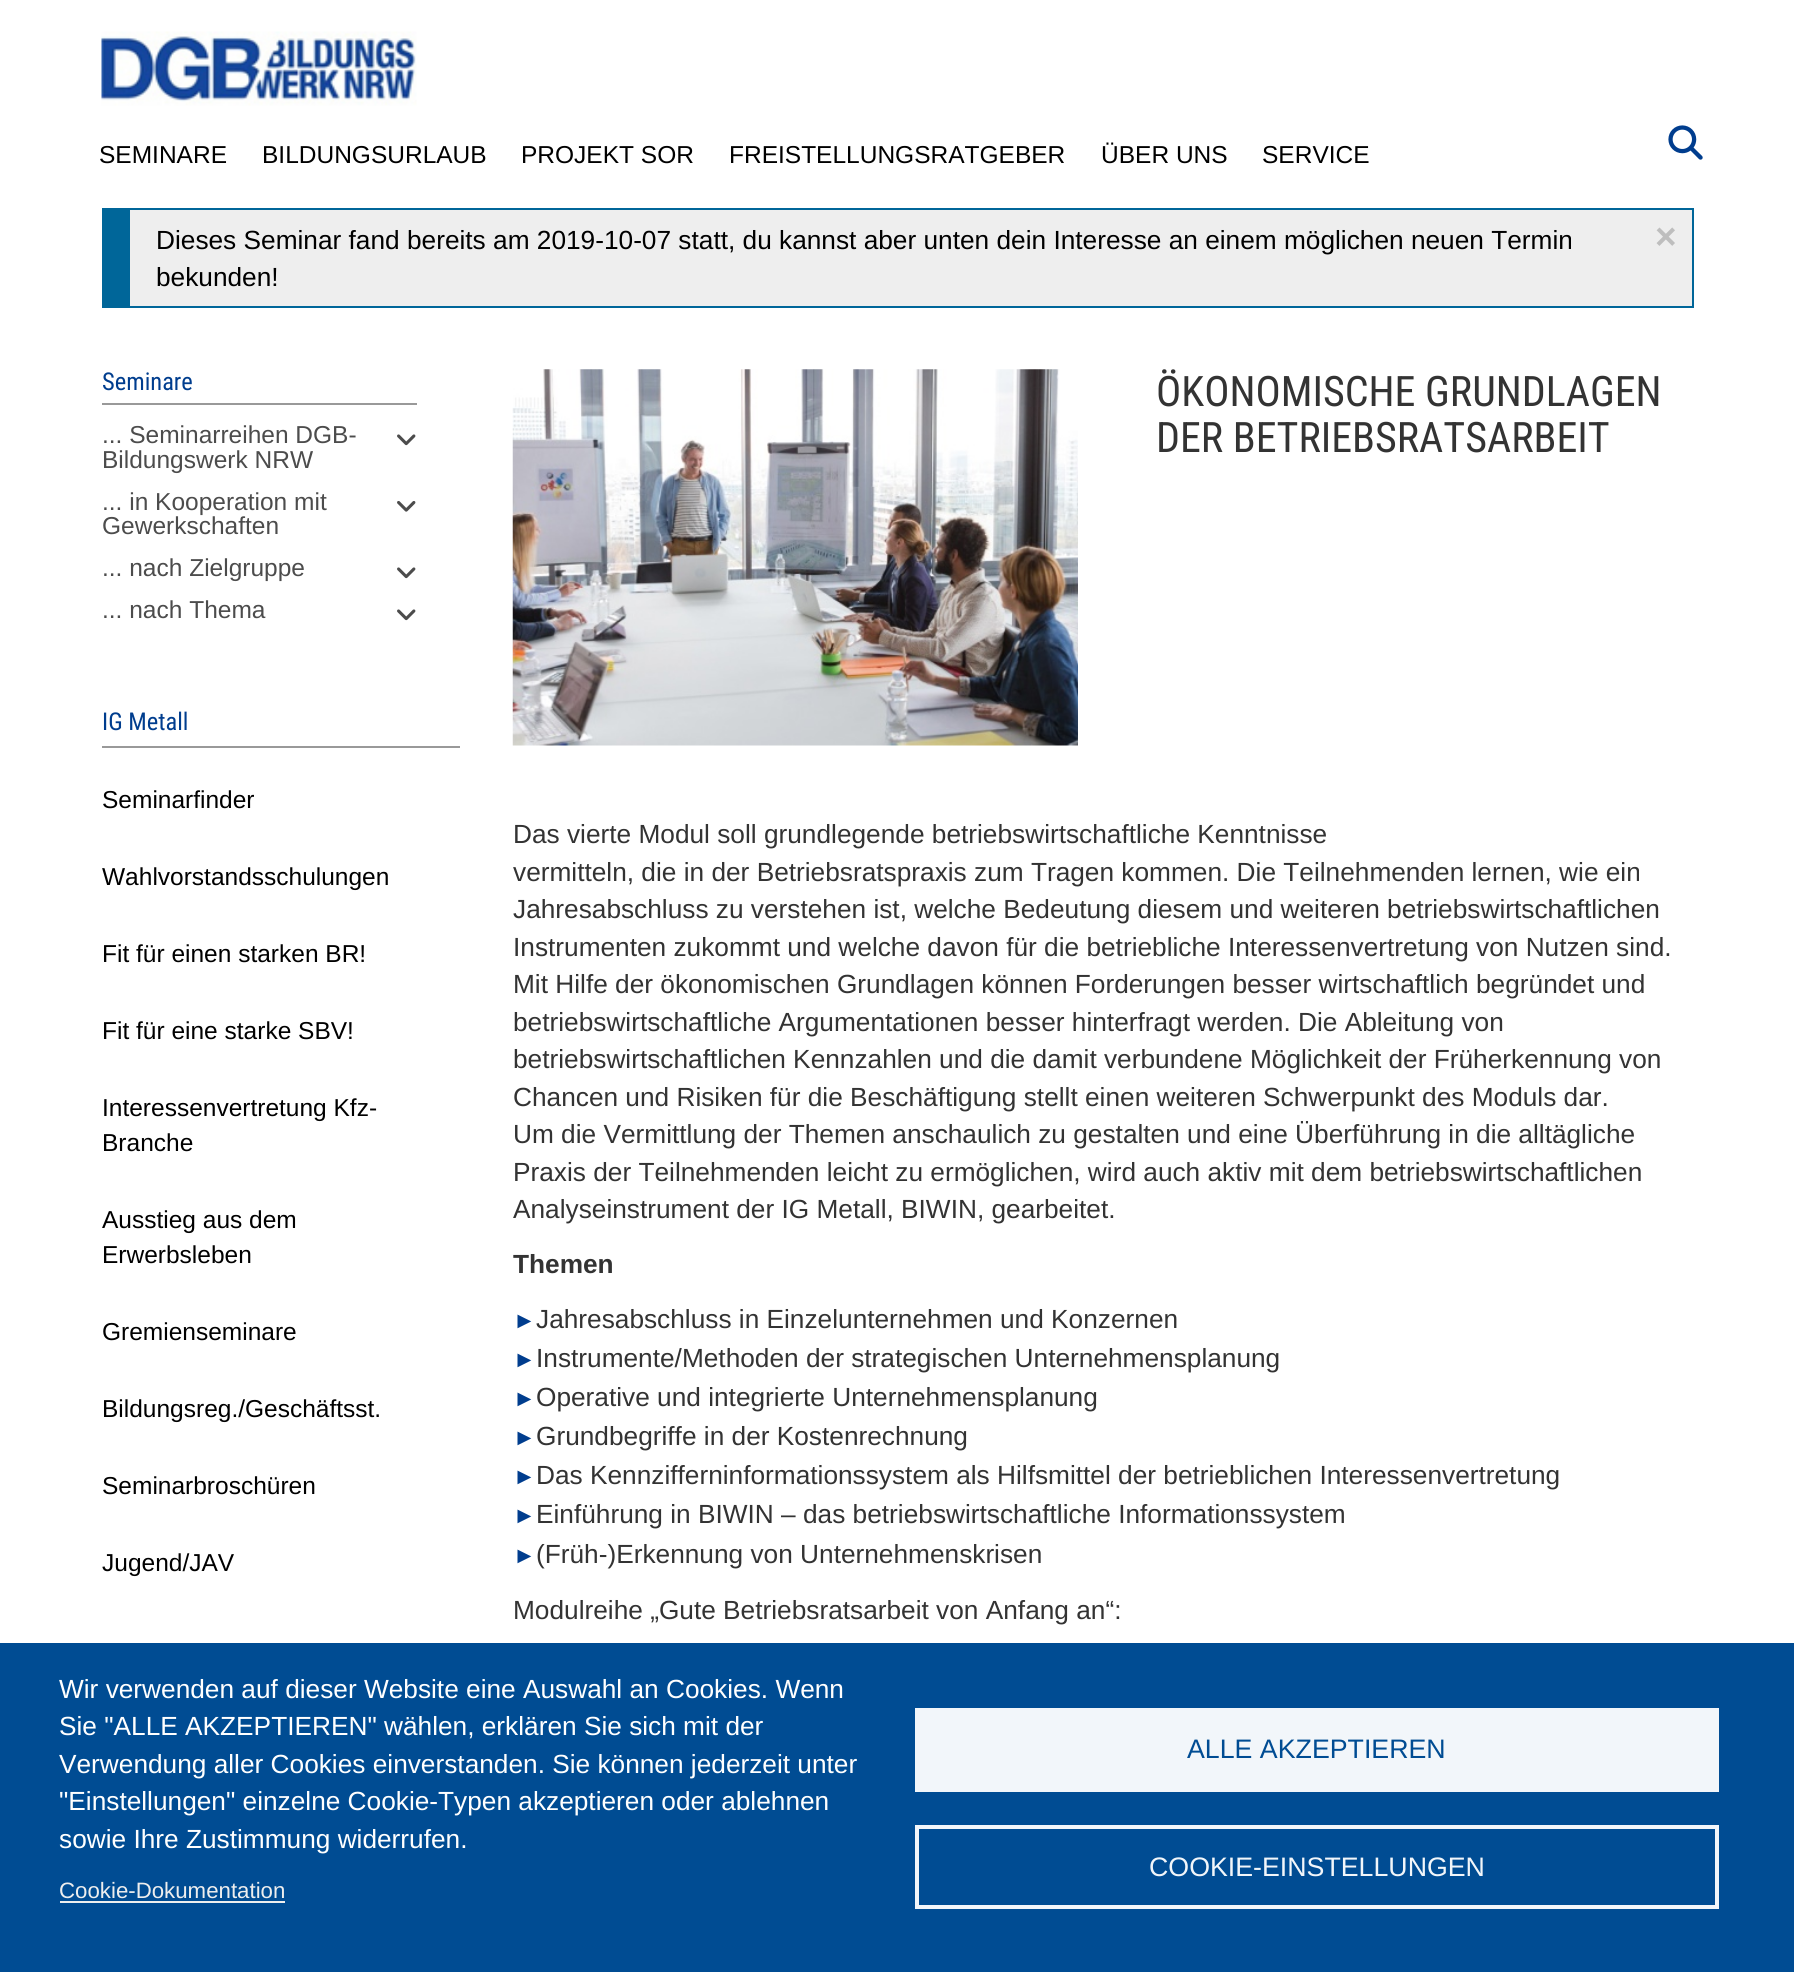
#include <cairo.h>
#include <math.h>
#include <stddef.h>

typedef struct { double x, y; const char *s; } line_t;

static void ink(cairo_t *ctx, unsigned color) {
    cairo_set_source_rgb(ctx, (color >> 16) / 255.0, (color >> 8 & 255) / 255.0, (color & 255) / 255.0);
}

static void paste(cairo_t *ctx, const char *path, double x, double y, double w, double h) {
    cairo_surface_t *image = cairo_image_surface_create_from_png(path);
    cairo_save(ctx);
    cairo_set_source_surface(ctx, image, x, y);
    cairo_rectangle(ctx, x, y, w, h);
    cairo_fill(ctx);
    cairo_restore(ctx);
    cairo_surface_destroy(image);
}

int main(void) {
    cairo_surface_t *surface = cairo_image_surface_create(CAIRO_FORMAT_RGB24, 1794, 1972);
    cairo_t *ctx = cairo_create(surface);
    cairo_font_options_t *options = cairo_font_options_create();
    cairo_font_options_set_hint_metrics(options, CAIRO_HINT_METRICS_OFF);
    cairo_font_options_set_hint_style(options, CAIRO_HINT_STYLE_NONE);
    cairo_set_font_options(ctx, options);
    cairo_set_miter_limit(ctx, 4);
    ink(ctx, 0xFFFFFF);
    cairo_paint(ctx);
    paste(ctx, "media/1.png", 101, 31, 316, 75);
    cairo_select_font_face(ctx, "Liberation Sans", CAIRO_FONT_SLANT_NORMAL, CAIRO_FONT_WEIGHT_NORMAL);
    cairo_set_font_size(ctx, 24.5);
    ink(ctx, 0x000000);
    {
        static const line_t items[] = {
            {99, 163, "SEMINARE"},
            {262, 163, "BILDUNGSURLAUB"},
            {521, 163, "PROJEKT SOR"},
            {729, 163, "FREISTELLUNGSRATGEBER"},
            {1101, 163, "ÜBER UNS"},
            {1262, 163, "SERVICE"},
        };
        for (size_t i = 0; i < sizeof items / sizeof *items; i++) {
            cairo_move_to(ctx, items[i].x, items[i].y);
            cairo_show_text(ctx, items[i].s);
        }
    }
    paste(ctx, "media/2.png", 1668, 125, 35, 35);
    ink(ctx, 0xEEEEEE);
    cairo_rectangle(ctx, 130, 210, 1562, 96);
    cairo_fill(ctx);
    cairo_rectangle(ctx, 103, 209, 1590, 98);
    ink(ctx, 0x006699);
    cairo_stroke(ctx);
    cairo_rectangle(ctx, 104, 210, 26, 96);
    cairo_fill(ctx);
    cairo_set_font_size(ctx, 26.25);
    ink(ctx, 0x000000);
    cairo_move_to(ctx, 156, 249);
    cairo_show_text(ctx, "Dieses Seminar fand bereits am 2019-10-07 statt, du kannst aber unten dein Interesse an einem möglichen neuen Termin");
    cairo_move_to(ctx, 156, 286);
    cairo_show_text(ctx, "bekunden!");
    cairo_select_font_face(ctx, "Liberation Sans", CAIRO_FONT_SLANT_NORMAL, CAIRO_FONT_WEIGHT_BOLD);
    cairo_set_font_size(ctx, 37);
    ink(ctx, 0xBEBEBE);
    cairo_move_to(ctx, 1655, 249);
    cairo_show_text(ctx, "×");
    paste(ctx, "media/3.png", 512, 369, 566, 377);
    cairo_select_font_face(ctx, "Roboto Condensed", CAIRO_FONT_SLANT_NORMAL, CAIRO_FONT_WEIGHT_NORMAL);
    cairo_set_font_size(ctx, 42);
    ink(ctx, 0x333333);
    cairo_move_to(ctx, 1156, 406);
    cairo_show_text(ctx, "ÖKONOMISCHE GRUNDLAGEN");
    cairo_move_to(ctx, 1156, 452);
    cairo_show_text(ctx, "DER BETRIEBSRATSARBEIT");
    cairo_select_font_face(ctx, "Liberation Sans", CAIRO_FONT_SLANT_NORMAL, CAIRO_FONT_WEIGHT_NORMAL);
    cairo_set_font_size(ctx, 26.25);
    {
        static const line_t items[] = {
            {513, 843, "Das vierte Modul soll grundlegende betriebswirtschaftliche Kenntnisse"},
            {513, 881, "vermitteln, die in der Betriebsratspraxis zum Tragen kommen. Die Teilnehmenden lernen, wie ein"},
            {513, 918, "Jahresabschluss zu verstehen ist, welche Bedeutung diesem und weiteren betriebswirtschaftlichen"},
            {513, 956, "Instrumenten zukommt und welche davon für die betriebliche Interessenvertretung von Nutzen sind."},
            {513, 993, "Mit Hilfe der ökonomischen Grundlagen können Forderungen besser wirtschaftlich begründet und"},
            {513, 1031, "betriebswirtschaftliche Argumentationen besser hinterfragt werden. Die Ableitung von"},
            {513, 1068, "betriebswirtschaftlichen Kennzahlen und die damit verbundene Möglichkeit der Früherkennung von"},
            {513, 1106, "Chancen und Risiken für die Beschäftigung stellt einen weiteren Schwerpunkt des Moduls dar."},
            {513, 1143, "Um die Vermittlung der Themen anschaulich zu gestalten und eine Überführung in die alltägliche"},
            {513, 1181, "Praxis der Teilnehmenden leicht zu ermöglichen, wird auch aktiv mit dem betriebswirtschaftlichen"},
            {513, 1218, "Analyseinstrument der IG Metall, BIWIN, gearbeitet."},
        };
        for (size_t i = 0; i < sizeof items / sizeof *items; i++) {
            cairo_move_to(ctx, items[i].x, items[i].y);
            cairo_show_text(ctx, items[i].s);
        }
    }
    cairo_select_font_face(ctx, "Liberation Sans", CAIRO_FONT_SLANT_NORMAL, CAIRO_FONT_WEIGHT_BOLD);
    cairo_move_to(ctx, 513, 1273);
    cairo_show_text(ctx, "Themen");
    cairo_select_font_face(ctx, "Liberation Sans", CAIRO_FONT_SLANT_NORMAL, CAIRO_FONT_WEIGHT_NORMAL);
    cairo_set_font_size(ctx, 23);
    ink(ctx, 0x003D8E);
    cairo_move_to(ctx, 513, 1328);
    cairo_show_text(ctx, "►");
    cairo_set_font_size(ctx, 26.25);
    ink(ctx, 0x333333);
    cairo_move_to(ctx, 536, 1328);
    cairo_show_text(ctx, "Jahresabschluss in Einzelunternehmen und Konzernen");
    cairo_set_font_size(ctx, 23);
    ink(ctx, 0x003D8E);
    cairo_move_to(ctx, 513, 1367);
    cairo_show_text(ctx, "►");
    cairo_set_font_size(ctx, 26.25);
    ink(ctx, 0x333333);
    cairo_move_to(ctx, 536, 1367);
    cairo_show_text(ctx, "Instrumente/Methoden der strategischen Unternehmensplanung");
    cairo_set_font_size(ctx, 23);
    ink(ctx, 0x003D8E);
    cairo_move_to(ctx, 513, 1406);
    cairo_show_text(ctx, "►");
    cairo_set_font_size(ctx, 26.25);
    ink(ctx, 0x333333);
    cairo_move_to(ctx, 536, 1406);
    cairo_show_text(ctx, "Operative und integrierte Unternehmensplanung");
    cairo_set_font_size(ctx, 23);
    ink(ctx, 0x003D8E);
    cairo_move_to(ctx, 513, 1445);
    cairo_show_text(ctx, "►");
    cairo_set_font_size(ctx, 26.25);
    ink(ctx, 0x333333);
    cairo_move_to(ctx, 536, 1445);
    cairo_show_text(ctx, "Grundbegriffe in der Kostenrechnung");
    cairo_set_font_size(ctx, 23);
    ink(ctx, 0x003D8E);
    cairo_move_to(ctx, 513, 1484);
    cairo_show_text(ctx, "►");
    cairo_set_font_size(ctx, 26.25);
    ink(ctx, 0x333333);
    cairo_move_to(ctx, 536, 1484);
    cairo_show_text(ctx, "Das Kennzifferninformationssystem als Hilfsmittel der betrieblichen Interessenvertretung");
    cairo_set_font_size(ctx, 23);
    ink(ctx, 0x003D8E);
    cairo_move_to(ctx, 513, 1523);
    cairo_show_text(ctx, "►");
    cairo_set_font_size(ctx, 26.25);
    ink(ctx, 0x333333);
    cairo_move_to(ctx, 536, 1523);
    cairo_show_text(ctx, "Einführung in BIWIN – das betriebswirtschaftliche Informationssystem");
    cairo_set_font_size(ctx, 23);
    ink(ctx, 0x003D8E);
    cairo_move_to(ctx, 513, 1563);
    cairo_show_text(ctx, "►");
    cairo_set_font_size(ctx, 26.25);
    ink(ctx, 0x333333);
    cairo_move_to(ctx, 536, 1563);
    cairo_show_text(ctx, "(Früh-)Erkennung von Unternehmenskrisen");
    cairo_move_to(ctx, 513, 1619);
    cairo_show_text(ctx, "Modulreihe „Gute Betriebsratsarbeit von Anfang an“:");
    ink(ctx, 0x004C93);
    cairo_rectangle(ctx, 0, 1643, 1794, 329);
    cairo_fill(ctx);
    ink(ctx, 0xFFFFFF);
    {
        static const line_t items[] = {
            {59, 1698, "Wir verwenden auf dieser Website eine Auswahl an Cookies. Wenn"},
            {59, 1735, "Sie \"ALLE AKZEPTIEREN\" wählen, erklären Sie sich mit der"},
            {59, 1773, "Verwendung aller Cookies einverstanden. Sie können jederzeit unter"},
            {59, 1810, "\"Einstellungen\" einzelne Cookie-Typen akzeptieren oder ablehnen"},
            {59, 1848, "sowie Ihre Zustimmung widerrufen."},
        };
        for (size_t i = 0; i < sizeof items / sizeof *items; i++) {
            cairo_move_to(ctx, items[i].x, items[i].y);
            cairo_show_text(ctx, items[i].s);
        }
    }
    cairo_set_font_size(ctx, 22.25);
    ink(ctx, 0xEEEEEE);
    cairo_move_to(ctx, 59, 1898);
    cairo_show_text(ctx, "Cookie-Dokumentation");
    cairo_rectangle(ctx, 60, 1901, 225, 2);
    cairo_fill(ctx);
    ink(ctx, 0xF2F6FA);
    cairo_rectangle(ctx, 915, 1708, 804, 84);
    cairo_fill(ctx);
    cairo_set_font_size(ctx, 26.75);
    ink(ctx, 0x004C93);
    cairo_move_to(ctx, 1187, 1758);
    cairo_show_text(ctx, "ALLE AKZEPTIEREN");
    cairo_rectangle(ctx, 917, 1827, 800, 80);
    ink(ctx, 0xF2F6FA);
    cairo_set_line_width(ctx, 4);
    cairo_stroke(ctx);
    cairo_move_to(ctx, 1149, 1876);
    cairo_show_text(ctx, "COOKIE-EINSTELLUNGEN");
    cairo_select_font_face(ctx, "Roboto Condensed", CAIRO_FONT_SLANT_NORMAL, CAIRO_FONT_WEIGHT_NORMAL);
    cairo_set_font_size(ctx, 24.5);
    ink(ctx, 0x003D8E);
    cairo_move_to(ctx, 102, 390);
    cairo_show_text(ctx, "Seminare");
    ink(ctx, 0x999999);
    cairo_rectangle(ctx, 102, 403, 315, 2);
    cairo_fill(ctx);
    cairo_select_font_face(ctx, "Liberation Sans", CAIRO_FONT_SLANT_NORMAL, CAIRO_FONT_WEIGHT_NORMAL);
    ink(ctx, 0x4C4C4C);
    cairo_move_to(ctx, 102, 443);
    cairo_show_text(ctx, "... Seminarreihen DGB-");
    paste(ctx, "media/4.png", 397, 434, 19, 12);
    cairo_move_to(ctx, 102, 468);
    cairo_show_text(ctx, "Bildungswerk NRW");
    cairo_move_to(ctx, 102, 510);
    cairo_show_text(ctx, "... in Kooperation mit");
    paste(ctx, "media/5.png", 397, 501, 19, 11);
    cairo_move_to(ctx, 102, 534);
    cairo_show_text(ctx, "Gewerkschaften");
    cairo_move_to(ctx, 102, 576);
    cairo_show_text(ctx, "... nach Zielgruppe");
    paste(ctx, "media/4.png", 397, 567, 19, 12);
    cairo_move_to(ctx, 102, 618);
    cairo_show_text(ctx, "... nach Thema");
    paste(ctx, "media/4.png", 397, 609, 19, 12);
    ink(ctx, 0x999999);
    cairo_rectangle(ctx, 102, 746, 358, 2);
    cairo_fill(ctx);
    cairo_select_font_face(ctx, "Roboto Condensed", CAIRO_FONT_SLANT_NORMAL, CAIRO_FONT_WEIGHT_NORMAL);
    ink(ctx, 0x003D8E);
    cairo_move_to(ctx, 102, 730);
    cairo_show_text(ctx, "IG Metall");
    cairo_select_font_face(ctx, "Liberation Sans", CAIRO_FONT_SLANT_NORMAL, CAIRO_FONT_WEIGHT_NORMAL);
    ink(ctx, 0x000000);
    {
        static const line_t items[] = {
            {102, 808, "Seminarfinder"},
            {102, 885, "Wahlvorstandsschulungen"},
            {102, 962, "Fit für einen starken BR!"},
            {102, 1039, "Fit für eine starke SBV!"},
            {102, 1116, "Interessenvertretung Kfz-"},
            {102, 1151, "Branche"},
            {102, 1228, "Ausstieg aus dem"},
            {102, 1263, "Erwerbsleben"},
            {102, 1340, "Gremienseminare"},
            {102, 1417, "Bildungsreg./Geschäftsst."},
            {102, 1494, "Seminarbroschüren"},
            {102, 1571, "Jugend/JAV"},
        };
        for (size_t i = 0; i < sizeof items / sizeof *items; i++) {
            cairo_move_to(ctx, items[i].x, items[i].y);
            cairo_show_text(ctx, items[i].s);
        }
    }
    cairo_surface_write_to_png(surface, "image.png");
    cairo_font_options_destroy(options);
    cairo_destroy(ctx);
    cairo_surface_destroy(surface);
    return 0;
}
